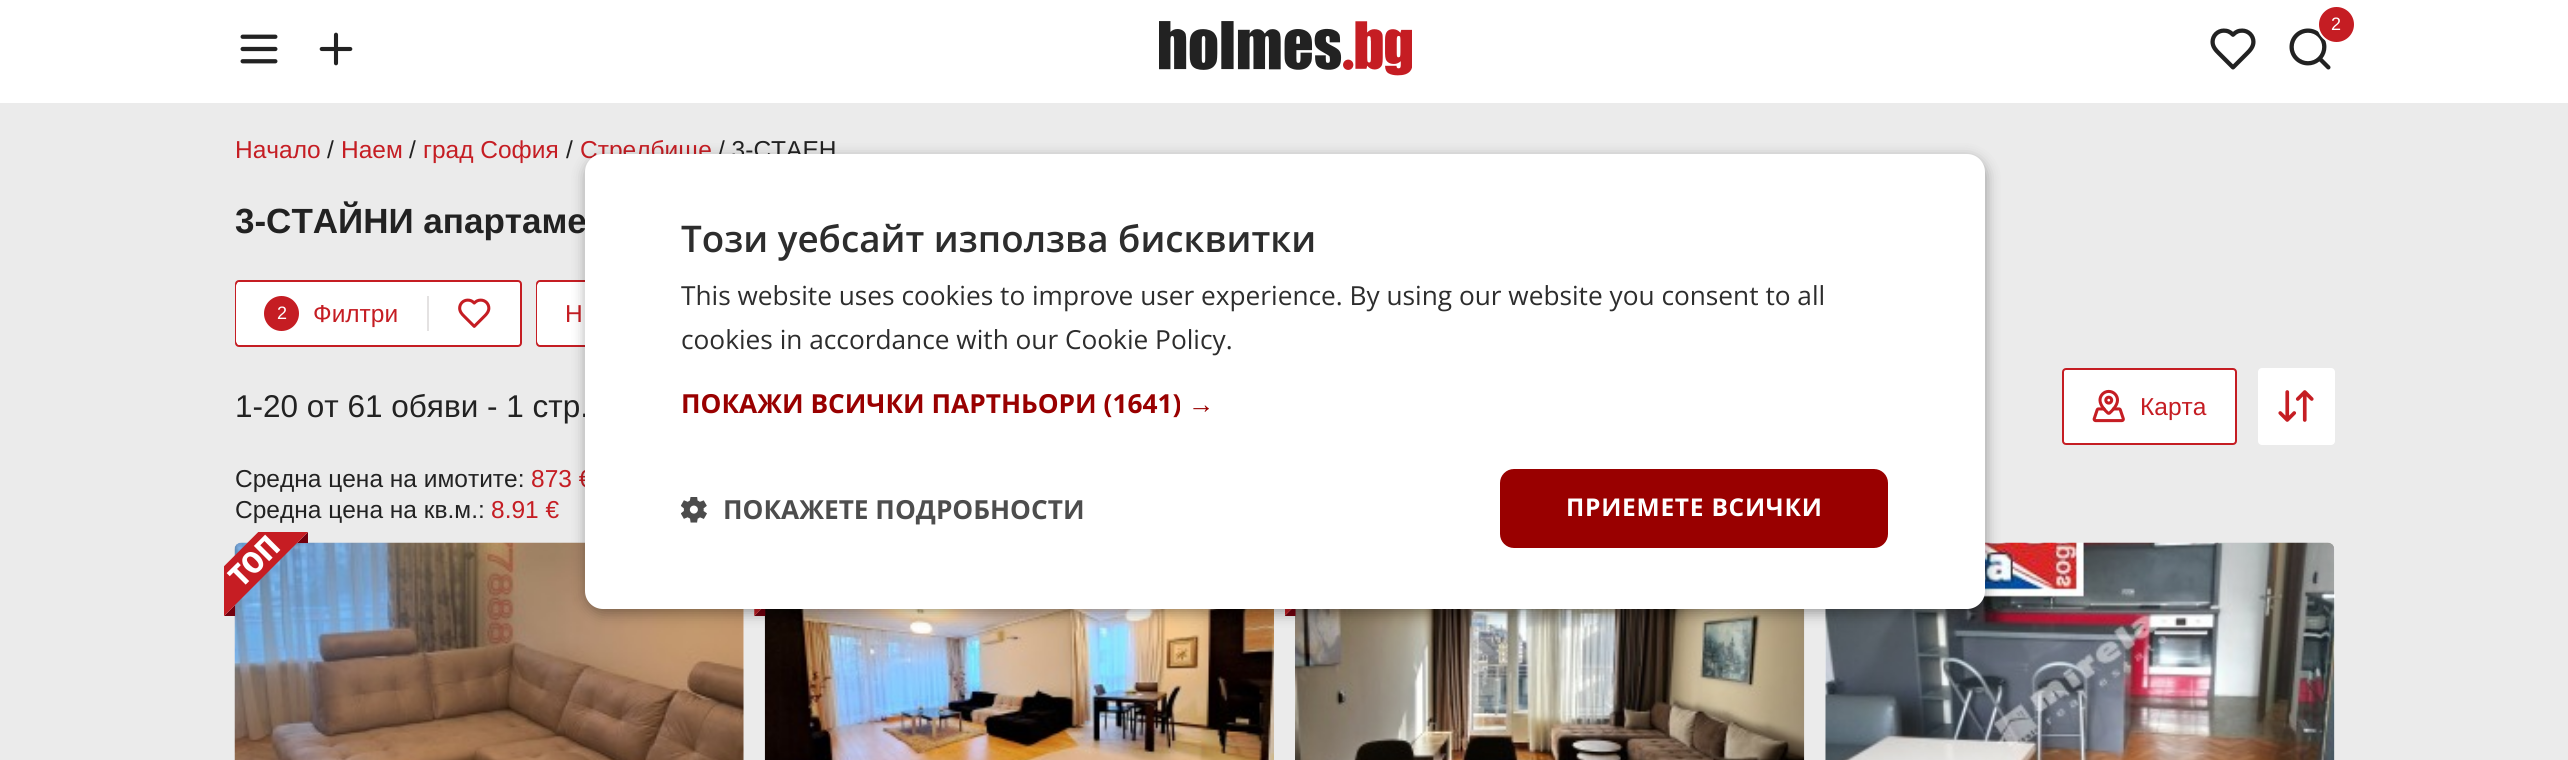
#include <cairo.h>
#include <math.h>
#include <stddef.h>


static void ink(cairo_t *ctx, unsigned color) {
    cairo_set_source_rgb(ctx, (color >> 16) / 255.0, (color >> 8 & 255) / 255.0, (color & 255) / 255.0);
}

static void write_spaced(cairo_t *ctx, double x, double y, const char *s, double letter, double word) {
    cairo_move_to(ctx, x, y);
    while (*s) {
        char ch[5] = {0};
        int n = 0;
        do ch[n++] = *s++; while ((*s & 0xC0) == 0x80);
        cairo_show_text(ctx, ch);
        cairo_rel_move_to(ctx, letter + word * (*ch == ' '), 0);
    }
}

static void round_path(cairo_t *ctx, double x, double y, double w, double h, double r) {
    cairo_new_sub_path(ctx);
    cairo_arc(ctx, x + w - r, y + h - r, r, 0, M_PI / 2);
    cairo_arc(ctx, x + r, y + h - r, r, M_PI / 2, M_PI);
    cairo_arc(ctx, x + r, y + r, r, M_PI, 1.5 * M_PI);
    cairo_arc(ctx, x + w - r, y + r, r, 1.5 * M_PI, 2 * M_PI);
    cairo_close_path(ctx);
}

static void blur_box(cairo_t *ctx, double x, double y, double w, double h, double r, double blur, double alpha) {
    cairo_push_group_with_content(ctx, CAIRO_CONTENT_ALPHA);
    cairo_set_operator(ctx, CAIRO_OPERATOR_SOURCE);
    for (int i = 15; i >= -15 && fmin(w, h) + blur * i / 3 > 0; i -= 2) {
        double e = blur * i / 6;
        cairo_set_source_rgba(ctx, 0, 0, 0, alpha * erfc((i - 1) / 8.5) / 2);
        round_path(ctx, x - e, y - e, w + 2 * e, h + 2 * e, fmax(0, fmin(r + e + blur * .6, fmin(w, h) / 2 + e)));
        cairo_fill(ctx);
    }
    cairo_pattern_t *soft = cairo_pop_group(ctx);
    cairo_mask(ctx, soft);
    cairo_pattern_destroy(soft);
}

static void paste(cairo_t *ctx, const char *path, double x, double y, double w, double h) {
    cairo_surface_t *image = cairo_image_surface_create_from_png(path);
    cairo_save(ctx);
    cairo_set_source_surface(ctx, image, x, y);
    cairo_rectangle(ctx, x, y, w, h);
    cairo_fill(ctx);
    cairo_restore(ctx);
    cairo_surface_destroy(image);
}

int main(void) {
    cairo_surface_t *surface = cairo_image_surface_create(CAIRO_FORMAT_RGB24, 2568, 760);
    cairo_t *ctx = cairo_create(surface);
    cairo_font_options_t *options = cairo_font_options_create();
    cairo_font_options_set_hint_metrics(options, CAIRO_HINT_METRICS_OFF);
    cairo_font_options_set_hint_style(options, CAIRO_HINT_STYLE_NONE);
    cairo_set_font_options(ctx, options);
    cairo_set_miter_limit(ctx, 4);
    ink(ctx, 0xEBEBEB);
    cairo_paint(ctx);
    ink(ctx, 0xFFFFFF);
    cairo_rectangle(ctx, 0, 0, 2568, 103);
    cairo_fill(ctx);
    paste(ctx, "media/1.png", 240, 34, 38, 30);
    paste(ctx, "media/2.png", 319, 32, 34, 34);
    paste(ctx, "media/3.png", 1159, 21, 253, 55);
    paste(ctx, "media/4.png", 2289, 28, 42, 42);
    ink(ctx, 0xC51D23);
    cairo_arc(ctx, 2336.5, 24.5, 18.5, 0, 2 * M_PI);
    cairo_fill_preserve(ctx);
    ink(ctx, 0xFFFFFF);
    cairo_stroke(ctx);
    cairo_select_font_face(ctx, "Liberation Sans", CAIRO_FONT_SLANT_NORMAL, CAIRO_FONT_WEIGHT_NORMAL);
    cairo_set_font_size(ctx, 18);
    cairo_move_to(ctx, 2331, 30);
    cairo_show_text(ctx, "2");
    paste(ctx, "media/5.png", 2210, 28, 46, 42);
    cairo_set_font_size(ctx, 24.5);
    ink(ctx, 0xC51D23);
    cairo_move_to(ctx, 235, 158);
    cairo_show_text(ctx, "Начало");
    ink(ctx, 0x222222);
    cairo_move_to(ctx, 327, 158);
    cairo_show_text(ctx, "/");
    ink(ctx, 0xC51D23);
    cairo_move_to(ctx, 341, 158);
    cairo_show_text(ctx, "Наем");
    ink(ctx, 0x222222);
    cairo_move_to(ctx, 409, 158);
    cairo_show_text(ctx, "/");
    ink(ctx, 0xC51D23);
    cairo_move_to(ctx, 423, 158);
    cairo_show_text(ctx, "град София");
    ink(ctx, 0x222222);
    cairo_move_to(ctx, 566, 158);
    cairo_show_text(ctx, "/");
    ink(ctx, 0xC51D23);
    cairo_move_to(ctx, 580, 158);
    cairo_show_text(ctx, "Стрелбище");
    ink(ctx, 0x222222);
    cairo_move_to(ctx, 718, 158);
    cairo_show_text(ctx, "/ 3-СТАЕН");
    cairo_select_font_face(ctx, "Liberation Sans", CAIRO_FONT_SLANT_NORMAL, CAIRO_FONT_WEIGHT_BOLD);
    cairo_set_font_size(ctx, 35);
    cairo_move_to(ctx, 235, 233);
    cairo_show_text(ctx, "3-СТАЙНИ апартаме");
    ink(ctx, 0xFFFFFF);
    round_path(ctx, 236, 281, 285, 65, 3);
    cairo_fill_preserve(ctx);
    ink(ctx, 0xC51D23);
    cairo_stroke(ctx);
    ink(ctx, 0xFFFFFF);
    cairo_new_path(ctx);
    cairo_move_to(ctx, 240, 282);
    cairo_line_to(ctx, 427, 282);
    cairo_line_to(ctx, 427, 345);
    cairo_line_to(ctx, 240, 345);
    cairo_curve_to(ctx, 238, 345, 236, 343, 236, 341);
    cairo_line_to(ctx, 236, 286);
    cairo_curve_to(ctx, 236, 284, 238, 282, 240, 282);
    cairo_close_path(ctx);
    cairo_fill(ctx);
    ink(ctx, 0xC51D23);
    cairo_arc(ctx, 281.5, 313.5, 17.5, 0, 2 * M_PI);
    cairo_fill(ctx);
    cairo_select_font_face(ctx, "Liberation Sans", CAIRO_FONT_SLANT_NORMAL, CAIRO_FONT_WEIGHT_NORMAL);
    cairo_set_font_size(ctx, 18);
    ink(ctx, 0xFFFFFF);
    cairo_move_to(ctx, 277, 319);
    cairo_show_text(ctx, "2");
    cairo_set_font_size(ctx, 24.5);
    ink(ctx, 0xC51D23);
    cairo_move_to(ctx, 313, 322);
    cairo_show_text(ctx, "Филтри");
    ink(ctx, 0xE4E2E2);
    cairo_rectangle(ctx, 427, 296, 2, 35);
    cairo_fill(ctx);
    ink(ctx, 0xFFFFFF);
    cairo_new_path(ctx);
    cairo_move_to(ctx, 429, 282);
    cairo_line_to(ctx, 516, 282);
    cairo_curve_to(ctx, 518, 282, 520, 284, 520, 286);
    cairo_line_to(ctx, 520, 341);
    cairo_curve_to(ctx, 520, 343, 518, 345, 516, 345);
    cairo_line_to(ctx, 429, 345);
    cairo_close_path(ctx);
    cairo_fill(ctx);
    paste(ctx, "media/6.png", 458, 298, 33, 30);
    round_path(ctx, 537, 281, 225, 65, 3);
    ink(ctx, 0xC51D23);
    cairo_stroke(ctx);
    ink(ctx, 0xFFFFFF);
    round_path(ctx, 537, 282, 132, 63, 4);
    cairo_fill(ctx);
    ink(ctx, 0xC51D23);
    cairo_move_to(ctx, 565, 322);
    cairo_show_text(ctx, "Н");
    cairo_set_font_size(ctx, 31.5);
    ink(ctx, 0x222222);
    cairo_move_to(ctx, 235, 417);
    cairo_show_text(ctx, "1-20 от 61 обяви - 1 стр.");
    ink(ctx, 0xFFFFFF);
    round_path(ctx, 2063, 369, 173, 75, 3);
    cairo_fill_preserve(ctx);
    ink(ctx, 0xC51D23);
    cairo_stroke(ctx);
    paste(ctx, "media/7.png", 2092, 389, 33, 34);
    cairo_set_font_size(ctx, 24.5);
    cairo_move_to(ctx, 2140, 415);
    cairo_show_text(ctx, "Карта");
    ink(ctx, 0xFFFFFF);
    round_path(ctx, 2258, 368, 77, 77, 4);
    cairo_fill(ctx);
    paste(ctx, "media/8.png", 2278, 390, 36, 32);
    ink(ctx, 0x222222);
    cairo_move_to(ctx, 235, 487);
    cairo_show_text(ctx, "Средна цена на имотите:");
    ink(ctx, 0xC51D23);
    cairo_move_to(ctx, 531, 487);
    cairo_show_text(ctx, "873 €");
    ink(ctx, 0x222222);
    cairo_move_to(ctx, 235, 518);
    cairo_show_text(ctx, "Средна цена на кв.м.:");
    ink(ctx, 0xC51D23);
    cairo_move_to(ctx, 491, 518);
    cairo_show_text(ctx, "8.91 €");
    ink(ctx, 0xFFFFFF);
    round_path(ctx, 235, 543, 509, 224, 7);
    cairo_fill(ctx);
    paste(ctx, "media/10.png", 234, 542, 510, 218);
    paste(ctx, "media/9.png", 224, 532, 84, 84);
    paste(ctx, "media/12.png", 764, 609, 510, 151);
    paste(ctx, "media/11.png", 754, 609, 12, 7);
    paste(ctx, "media/14.png", 1295, 609, 510, 151);
    paste(ctx, "media/13.png", 1285, 609, 11, 7);
    round_path(ctx, 1825, 543, 510, 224, 7);
    cairo_fill(ctx);
    paste(ctx, "media/15.png", 1825, 542, 510, 218);
    ink(ctx, 0x000000);
    blur_box(ctx, 586, 158, 1400, 455, 18, 7, 0.35);
    ink(ctx, 0xFFFFFF);
    round_path(ctx, 585, 154, 1400, 455, 18);
    cairo_fill(ctx);
    cairo_select_font_face(ctx, "Open Sans SemiBold", CAIRO_FONT_SLANT_NORMAL, CAIRO_FONT_WEIGHT_NORMAL);
    cairo_set_font_size(ctx, 36.75);
    ink(ctx, 0x2D2D2D);
    cairo_move_to(ctx, 681, 252);
    cairo_show_text(ctx, "Този уебсайт използва бисквитки");
    cairo_select_font_face(ctx, "Open Sans", CAIRO_FONT_SLANT_NORMAL, CAIRO_FONT_WEIGHT_NORMAL);
    cairo_set_font_size(ctx, 26.25);
    cairo_move_to(ctx, 681, 305);
    cairo_show_text(ctx, "This website uses cookies to improve user experience. By using our website you consent to all");
    cairo_move_to(ctx, 681, 349);
    cairo_show_text(ctx, "cookies in accordance with our Cookie Policy.");
    cairo_select_font_face(ctx, "Open Sans", CAIRO_FONT_SLANT_NORMAL, CAIRO_FONT_WEIGHT_BOLD);
    ink(ctx, 0x990000);
    cairo_move_to(ctx, 681, 413);
    cairo_show_text(ctx, "ПОКАЖИ ВСИЧКИ ПАРТНЬОРИ (1641)");
    cairo_select_font_face(ctx, "Liberation Sans", CAIRO_FONT_SLANT_NORMAL, CAIRO_FONT_WEIGHT_BOLD);
    cairo_move_to(ctx, 1188, 413);
    cairo_show_text(ctx, "→");
    paste(ctx, "media/16.png", 681, 497, 26, 26);
    cairo_select_font_face(ctx, "Open Sans", CAIRO_FONT_SLANT_NORMAL, CAIRO_FONT_WEIGHT_BOLD);
    ink(ctx, 0x4D4D4D);
    cairo_move_to(ctx, 723, 519);
    cairo_show_text(ctx, "ПОКАЖЕТЕ ПОДРОБНОСТИ");
    ink(ctx, 0x990000);
    round_path(ctx, 1500, 469, 388, 79, 14);
    cairo_fill(ctx);
    cairo_set_font_size(ctx, 24.5);
    ink(ctx, 0xFFFFFF);
    write_spaced(ctx, 1566, 516, "ПРИЕМЕТЕ ВСИЧКИ", 0.75, 0);
    cairo_surface_write_to_png(surface, "image.png");
    cairo_font_options_destroy(options);
    cairo_destroy(ctx);
    cairo_surface_destroy(surface);
    return 0;
}
